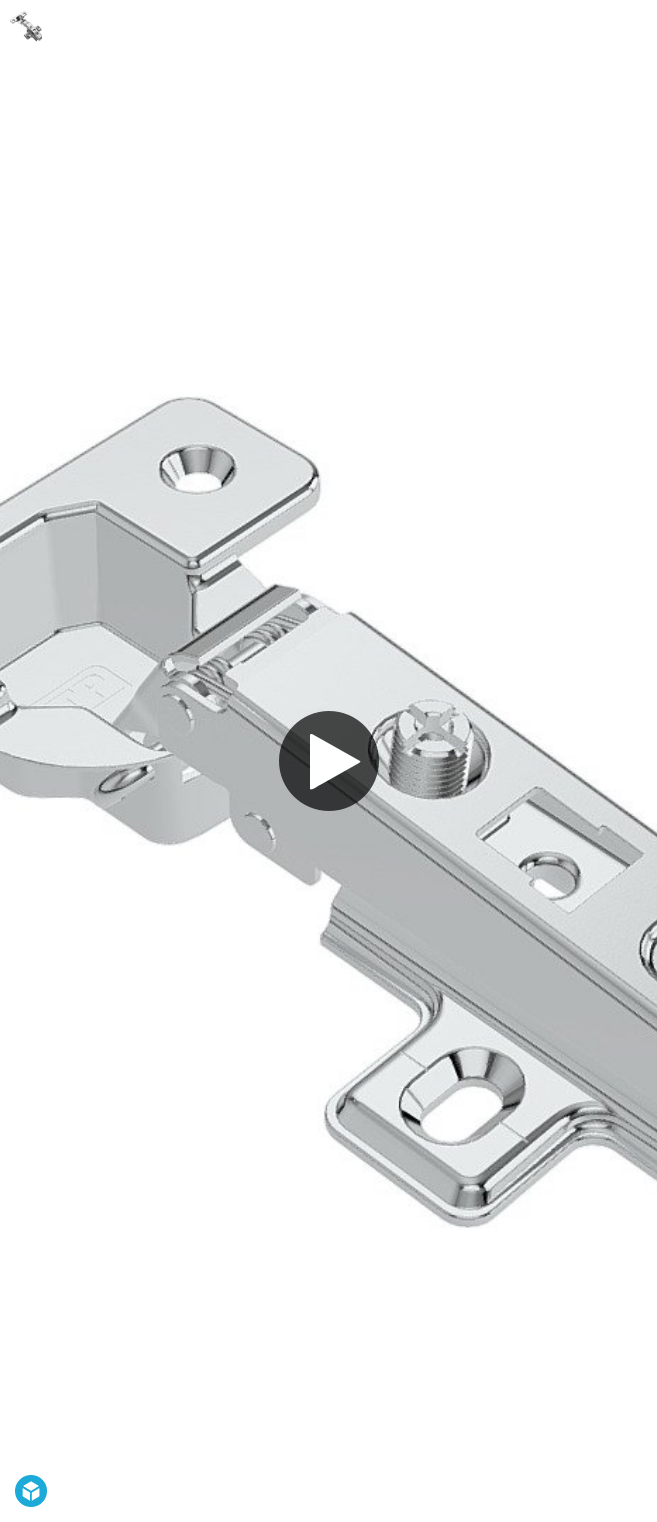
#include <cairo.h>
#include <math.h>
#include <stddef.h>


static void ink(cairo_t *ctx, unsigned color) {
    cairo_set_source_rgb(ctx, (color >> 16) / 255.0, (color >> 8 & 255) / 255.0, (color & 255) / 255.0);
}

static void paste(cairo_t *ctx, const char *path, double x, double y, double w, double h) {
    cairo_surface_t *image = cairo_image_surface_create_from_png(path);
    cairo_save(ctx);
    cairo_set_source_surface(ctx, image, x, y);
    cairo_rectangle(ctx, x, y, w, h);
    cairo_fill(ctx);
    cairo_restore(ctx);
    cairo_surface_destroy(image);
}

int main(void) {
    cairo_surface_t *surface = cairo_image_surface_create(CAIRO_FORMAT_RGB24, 657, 1522);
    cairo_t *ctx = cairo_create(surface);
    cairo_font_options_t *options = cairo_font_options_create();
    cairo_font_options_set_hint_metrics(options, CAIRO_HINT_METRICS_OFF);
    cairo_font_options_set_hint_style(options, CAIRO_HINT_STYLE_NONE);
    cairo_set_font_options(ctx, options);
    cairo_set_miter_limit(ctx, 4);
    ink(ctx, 0xFFFFFF);
    cairo_paint(ctx);
    paste(ctx, "media/1.png", 10, 10, 32, 32);
    paste(ctx, "media/2.png", 0, 394, 657, 835);
    cairo_set_source_rgba(ctx, 0, 0, 0, 0.7);
    cairo_arc(ctx, 329, 761, 50, 0, 2 * M_PI);
    cairo_fill(ctx);
    ink(ctx, 0xFFFFFF);
    cairo_new_path(ctx);
    cairo_move_to(ctx, 359, 763);
    cairo_line_to(ctx, 320, 785);
    cairo_curve_to(ctx, 319, 785, 312, 791, 310, 789);
    cairo_line_to(ctx, 310, 735);
    cairo_curve_to(ctx, 310, 734, 311, 734, 312, 734);
    cairo_line_to(ctx, 360, 761);
    cairo_curve_to(ctx, 361, 762, 360, 762, 359, 763);
    cairo_close_path(ctx);
    cairo_fill(ctx);
    paste(ctx, "media/3.png", 15, 1475, 32, 32);
    cairo_surface_write_to_png(surface, "image.png");
    cairo_font_options_destroy(options);
    cairo_destroy(ctx);
    cairo_surface_destroy(surface);
    return 0;
}
